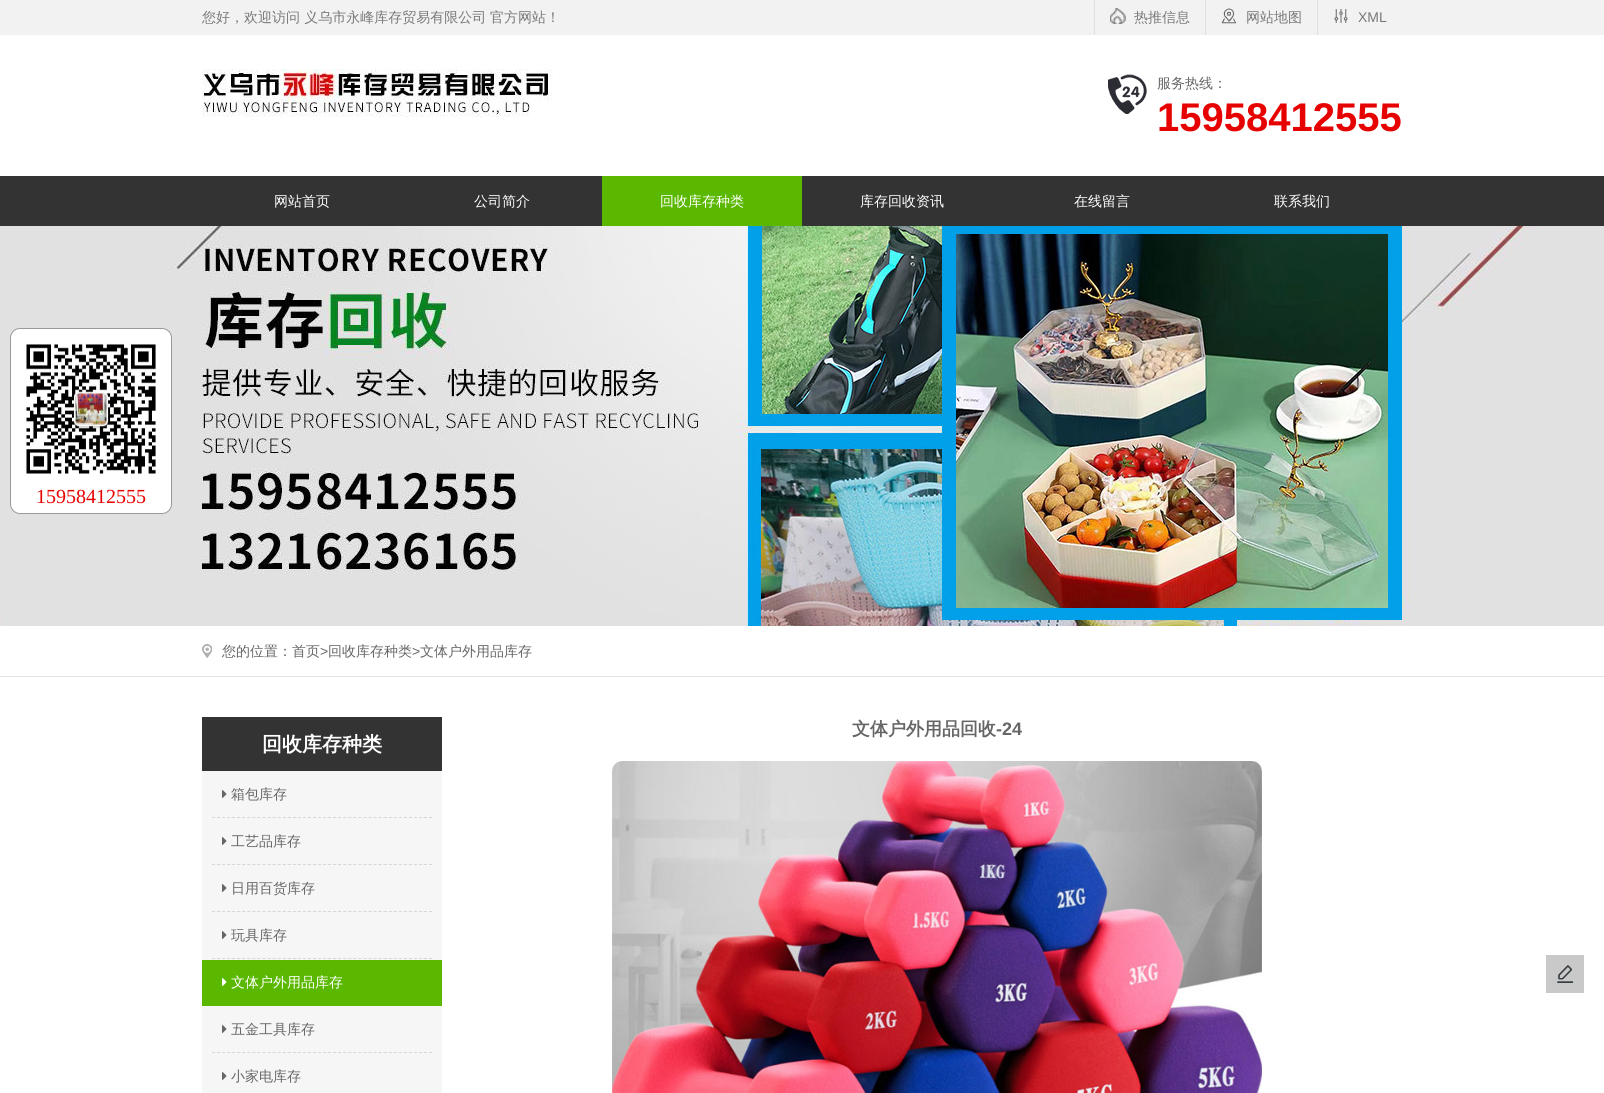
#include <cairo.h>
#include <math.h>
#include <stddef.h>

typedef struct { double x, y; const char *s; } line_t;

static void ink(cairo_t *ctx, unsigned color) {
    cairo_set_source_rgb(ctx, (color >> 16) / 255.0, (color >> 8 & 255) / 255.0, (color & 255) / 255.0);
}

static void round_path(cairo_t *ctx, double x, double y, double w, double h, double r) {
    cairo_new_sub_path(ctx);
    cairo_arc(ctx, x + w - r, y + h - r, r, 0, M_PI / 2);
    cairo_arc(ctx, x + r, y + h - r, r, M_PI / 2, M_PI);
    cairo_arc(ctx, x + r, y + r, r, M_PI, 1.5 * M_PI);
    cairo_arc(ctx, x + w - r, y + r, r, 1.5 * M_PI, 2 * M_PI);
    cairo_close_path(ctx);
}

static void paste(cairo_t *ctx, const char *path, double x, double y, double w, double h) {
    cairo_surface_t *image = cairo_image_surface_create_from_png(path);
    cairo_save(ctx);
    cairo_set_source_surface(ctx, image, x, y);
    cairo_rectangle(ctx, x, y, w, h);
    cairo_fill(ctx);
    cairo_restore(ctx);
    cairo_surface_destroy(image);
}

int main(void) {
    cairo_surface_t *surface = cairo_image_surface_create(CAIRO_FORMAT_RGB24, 1604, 1093);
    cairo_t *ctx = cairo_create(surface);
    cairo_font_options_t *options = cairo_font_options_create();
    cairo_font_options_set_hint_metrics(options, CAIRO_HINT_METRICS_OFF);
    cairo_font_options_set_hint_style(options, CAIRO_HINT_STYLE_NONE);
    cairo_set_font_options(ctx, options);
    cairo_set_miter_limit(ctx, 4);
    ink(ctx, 0xFFFFFF);
    cairo_paint(ctx);
    ink(ctx, 0xF2F2F2);
    cairo_rectangle(ctx, 0, 0, 1604, 35);
    cairo_fill(ctx);
    cairo_select_font_face(ctx, "WenQuanYi Zen Hei Medium", CAIRO_FONT_SLANT_NORMAL, CAIRO_FONT_WEIGHT_NORMAL);
    cairo_set_font_size(ctx, 14);
    ink(ctx, 0x797979);
    cairo_move_to(ctx, 202, 22);
    cairo_show_text(ctx, "您好，欢迎访问 义乌市永峰库存贸易有限公司");
    cairo_move_to(ctx, 490, 22);
    cairo_show_text(ctx, "官方网站！");
    ink(ctx, 0xE0E0E0);
    cairo_rectangle(ctx, 1094, 0, 1, 35);
    cairo_fill(ctx);
    paste(ctx, "media/1.png", 1110, 8, 16, 16);
    ink(ctx, 0x797979);
    cairo_move_to(ctx, 1134, 22);
    cairo_show_text(ctx, "热推信息");
    ink(ctx, 0xE0E0E0);
    cairo_rectangle(ctx, 1205, 0, 1, 35);
    cairo_fill(ctx);
    paste(ctx, "media/2.png", 1221, 8, 15, 16);
    ink(ctx, 0x797979);
    cairo_move_to(ctx, 1246, 22);
    cairo_show_text(ctx, "网站地图");
    ink(ctx, 0xE0E0E0);
    cairo_rectangle(ctx, 1317, 0, 1, 35);
    cairo_fill(ctx);
    paste(ctx, "media/3.png", 1334, 9, 14, 14);
    cairo_select_font_face(ctx, "Liberation Sans", CAIRO_FONT_SLANT_NORMAL, CAIRO_FONT_WEIGHT_NORMAL);
    ink(ctx, 0x797979);
    cairo_move_to(ctx, 1358, 22);
    cairo_show_text(ctx, "XML");
    paste(ctx, "media/4.png", 202, 69, 351, 48);
    paste(ctx, "media/5.png", 1108, 74, 39, 40);
    cairo_select_font_face(ctx, "WenQuanYi Zen Hei Medium", CAIRO_FONT_SLANT_NORMAL, CAIRO_FONT_WEIGHT_NORMAL);
    ink(ctx, 0x666666);
    cairo_move_to(ctx, 1157, 88);
    cairo_show_text(ctx, "服务热线：");
    cairo_select_font_face(ctx, "Liberation Sans", CAIRO_FONT_SLANT_NORMAL, CAIRO_FONT_WEIGHT_BOLD);
    cairo_set_font_size(ctx, 40);
    ink(ctx, 0xE70202);
    cairo_move_to(ctx, 1157, 131);
    cairo_show_text(ctx, "15958412555");
    ink(ctx, 0x333333);
    cairo_rectangle(ctx, 0, 176, 1604, 50);
    cairo_fill(ctx);
    cairo_select_font_face(ctx, "WenQuanYi Zen Hei Medium", CAIRO_FONT_SLANT_NORMAL, CAIRO_FONT_WEIGHT_NORMAL);
    cairo_set_font_size(ctx, 14);
    ink(ctx, 0xFFFFFF);
    cairo_move_to(ctx, 274, 206);
    cairo_show_text(ctx, "网站首页");
    cairo_move_to(ctx, 474, 206);
    cairo_show_text(ctx, "公司简介");
    ink(ctx, 0x5BB800);
    cairo_rectangle(ctx, 602, 176, 200, 50);
    cairo_fill(ctx);
    ink(ctx, 0xFFFFFF);
    {
        static const line_t items[] = {
            {660, 206, "回收库存种类"},
            {860, 206, "库存回收资讯"},
            {1074, 206, "在线留言"},
            {1274, 206, "联系我们"},
        };
        for (size_t i = 0; i < sizeof items / sizeof *items; i++) {
            cairo_move_to(ctx, items[i].x, items[i].y);
            cairo_show_text(ctx, items[i].s);
        }
    }
    paste(ctx, "media/6.png", 0, 226, 1604, 400);
    round_path(ctx, 10.5, 328.5, 161, 185, 9.5);
    cairo_fill_preserve(ctx);
    ink(ctx, 0x999999);
    cairo_set_line_width(ctx, 1);
    cairo_stroke(ctx);
    paste(ctx, "media/7.png", 25, 343, 131, 131);
    cairo_select_font_face(ctx, "Liberation Serif", CAIRO_FONT_SLANT_NORMAL, CAIRO_FONT_WEIGHT_NORMAL);
    cairo_set_font_size(ctx, 20);
    ink(ctx, 0xE70202);
    cairo_move_to(ctx, 36, 503);
    cairo_show_text(ctx, "15958412555");
    ink(ctx, 0xE4E4E4);
    cairo_rectangle(ctx, 0, 676, 1604, 1);
    cairo_fill(ctx);
    paste(ctx, "media/8.png", 202, 644, 10, 14);
    cairo_select_font_face(ctx, "WenQuanYi Zen Hei Medium", CAIRO_FONT_SLANT_NORMAL, CAIRO_FONT_WEIGHT_NORMAL);
    cairo_set_font_size(ctx, 14);
    ink(ctx, 0x666666);
    cairo_move_to(ctx, 222, 656);
    cairo_show_text(ctx, "您的位置：首页");
    cairo_select_font_face(ctx, "Liberation Sans", CAIRO_FONT_SLANT_NORMAL, CAIRO_FONT_WEIGHT_NORMAL);
    cairo_move_to(ctx, 320, 656);
    cairo_show_text(ctx, ">");
    cairo_select_font_face(ctx, "WenQuanYi Zen Hei Medium", CAIRO_FONT_SLANT_NORMAL, CAIRO_FONT_WEIGHT_NORMAL);
    cairo_move_to(ctx, 328, 656);
    cairo_show_text(ctx, "回收库存种类");
    cairo_select_font_face(ctx, "Liberation Sans", CAIRO_FONT_SLANT_NORMAL, CAIRO_FONT_WEIGHT_NORMAL);
    cairo_move_to(ctx, 412, 656);
    cairo_show_text(ctx, ">");
    cairo_select_font_face(ctx, "WenQuanYi Zen Hei Medium", CAIRO_FONT_SLANT_NORMAL, CAIRO_FONT_WEIGHT_NORMAL);
    cairo_move_to(ctx, 420, 656);
    cairo_show_text(ctx, "文体户外用品库存");
    cairo_select_font_face(ctx, "WenQuanYi Zen Hei", CAIRO_FONT_SLANT_NORMAL, CAIRO_FONT_WEIGHT_BOLD);
    cairo_set_font_size(ctx, 18);
    cairo_move_to(ctx, 852, 735);
    cairo_show_text(ctx, "文体户外用品回收");
    cairo_select_font_face(ctx, "Liberation Sans", CAIRO_FONT_SLANT_NORMAL, CAIRO_FONT_WEIGHT_BOLD);
    cairo_move_to(ctx, 996, 735);
    cairo_show_text(ctx, "-24");
    paste(ctx, "media/9.png", 612, 761, 650, 332);
    ink(ctx, 0x333333);
    cairo_rectangle(ctx, 202, 717, 240, 54);
    cairo_fill(ctx);
    cairo_select_font_face(ctx, "WenQuanYi Zen Hei", CAIRO_FONT_SLANT_NORMAL, CAIRO_FONT_WEIGHT_BOLD);
    cairo_set_font_size(ctx, 20);
    ink(ctx, 0xFFFFFF);
    cairo_move_to(ctx, 262, 751);
    cairo_show_text(ctx, "回收库存种类");
    ink(ctx, 0xF6F6F6);
    cairo_rectangle(ctx, 202, 771, 240, 322);
    cairo_fill(ctx);
    cairo_new_path(ctx);
    cairo_move_to(ctx, 212, 817.5);
    cairo_line_to(ctx, 432, 817.5);
    ink(ctx, 0xD6D6D6);
    cairo_set_dash(ctx, (double[]){3, 2.05}, 2, 0);
    cairo_stroke(ctx);
    paste(ctx, "media/10.png", 222, 790, 5, 8);
    cairo_select_font_face(ctx, "WenQuanYi Zen Hei Medium", CAIRO_FONT_SLANT_NORMAL, CAIRO_FONT_WEIGHT_NORMAL);
    cairo_set_font_size(ctx, 14);
    ink(ctx, 0x666666);
    cairo_move_to(ctx, 231, 799);
    cairo_show_text(ctx, "箱包库存");
    cairo_new_path(ctx);
    cairo_move_to(ctx, 212, 864.5);
    cairo_line_to(ctx, 432, 864.5);
    ink(ctx, 0xD6D6D6);
    cairo_stroke(ctx);
    paste(ctx, "media/10.png", 222, 837, 5, 8);
    ink(ctx, 0x666666);
    cairo_move_to(ctx, 231, 846);
    cairo_show_text(ctx, "工艺品库存");
    cairo_new_path(ctx);
    cairo_move_to(ctx, 212, 911.5);
    cairo_line_to(ctx, 432, 911.5);
    ink(ctx, 0xD6D6D6);
    cairo_stroke(ctx);
    paste(ctx, "media/10.png", 222, 884, 5, 8);
    ink(ctx, 0x666666);
    cairo_move_to(ctx, 231, 893);
    cairo_show_text(ctx, "日用百货库存");
    cairo_new_path(ctx);
    cairo_move_to(ctx, 212, 958.5);
    cairo_line_to(ctx, 432, 958.5);
    ink(ctx, 0xD6D6D6);
    cairo_stroke(ctx);
    paste(ctx, "media/10.png", 222, 931, 5, 8);
    ink(ctx, 0x666666);
    cairo_move_to(ctx, 231, 940);
    cairo_show_text(ctx, "玩具库存");
    ink(ctx, 0x5BB800);
    cairo_rectangle(ctx, 202, 960, 240, 46);
    cairo_fill(ctx);
    paste(ctx, "media/11.png", 222, 978, 5, 8);
    ink(ctx, 0xFFFFFF);
    cairo_move_to(ctx, 231, 987);
    cairo_show_text(ctx, "文体户外用品库存");
    cairo_new_path(ctx);
    cairo_move_to(ctx, 212, 1052.5);
    cairo_line_to(ctx, 432, 1052.5);
    ink(ctx, 0xD6D6D6);
    cairo_stroke(ctx);
    paste(ctx, "media/10.png", 222, 1025, 5, 8);
    ink(ctx, 0x666666);
    cairo_move_to(ctx, 231, 1034);
    cairo_show_text(ctx, "五金工具库存");
    paste(ctx, "media/10.png", 222, 1072, 5, 8);
    cairo_move_to(ctx, 231, 1081);
    cairo_show_text(ctx, "小家电库存");
    paste(ctx, "media/12.png", 1546, 955, 38, 38);
    cairo_surface_write_to_png(surface, "image.png");
    cairo_font_options_destroy(options);
    cairo_destroy(ctx);
    cairo_surface_destroy(surface);
    return 0;
}
